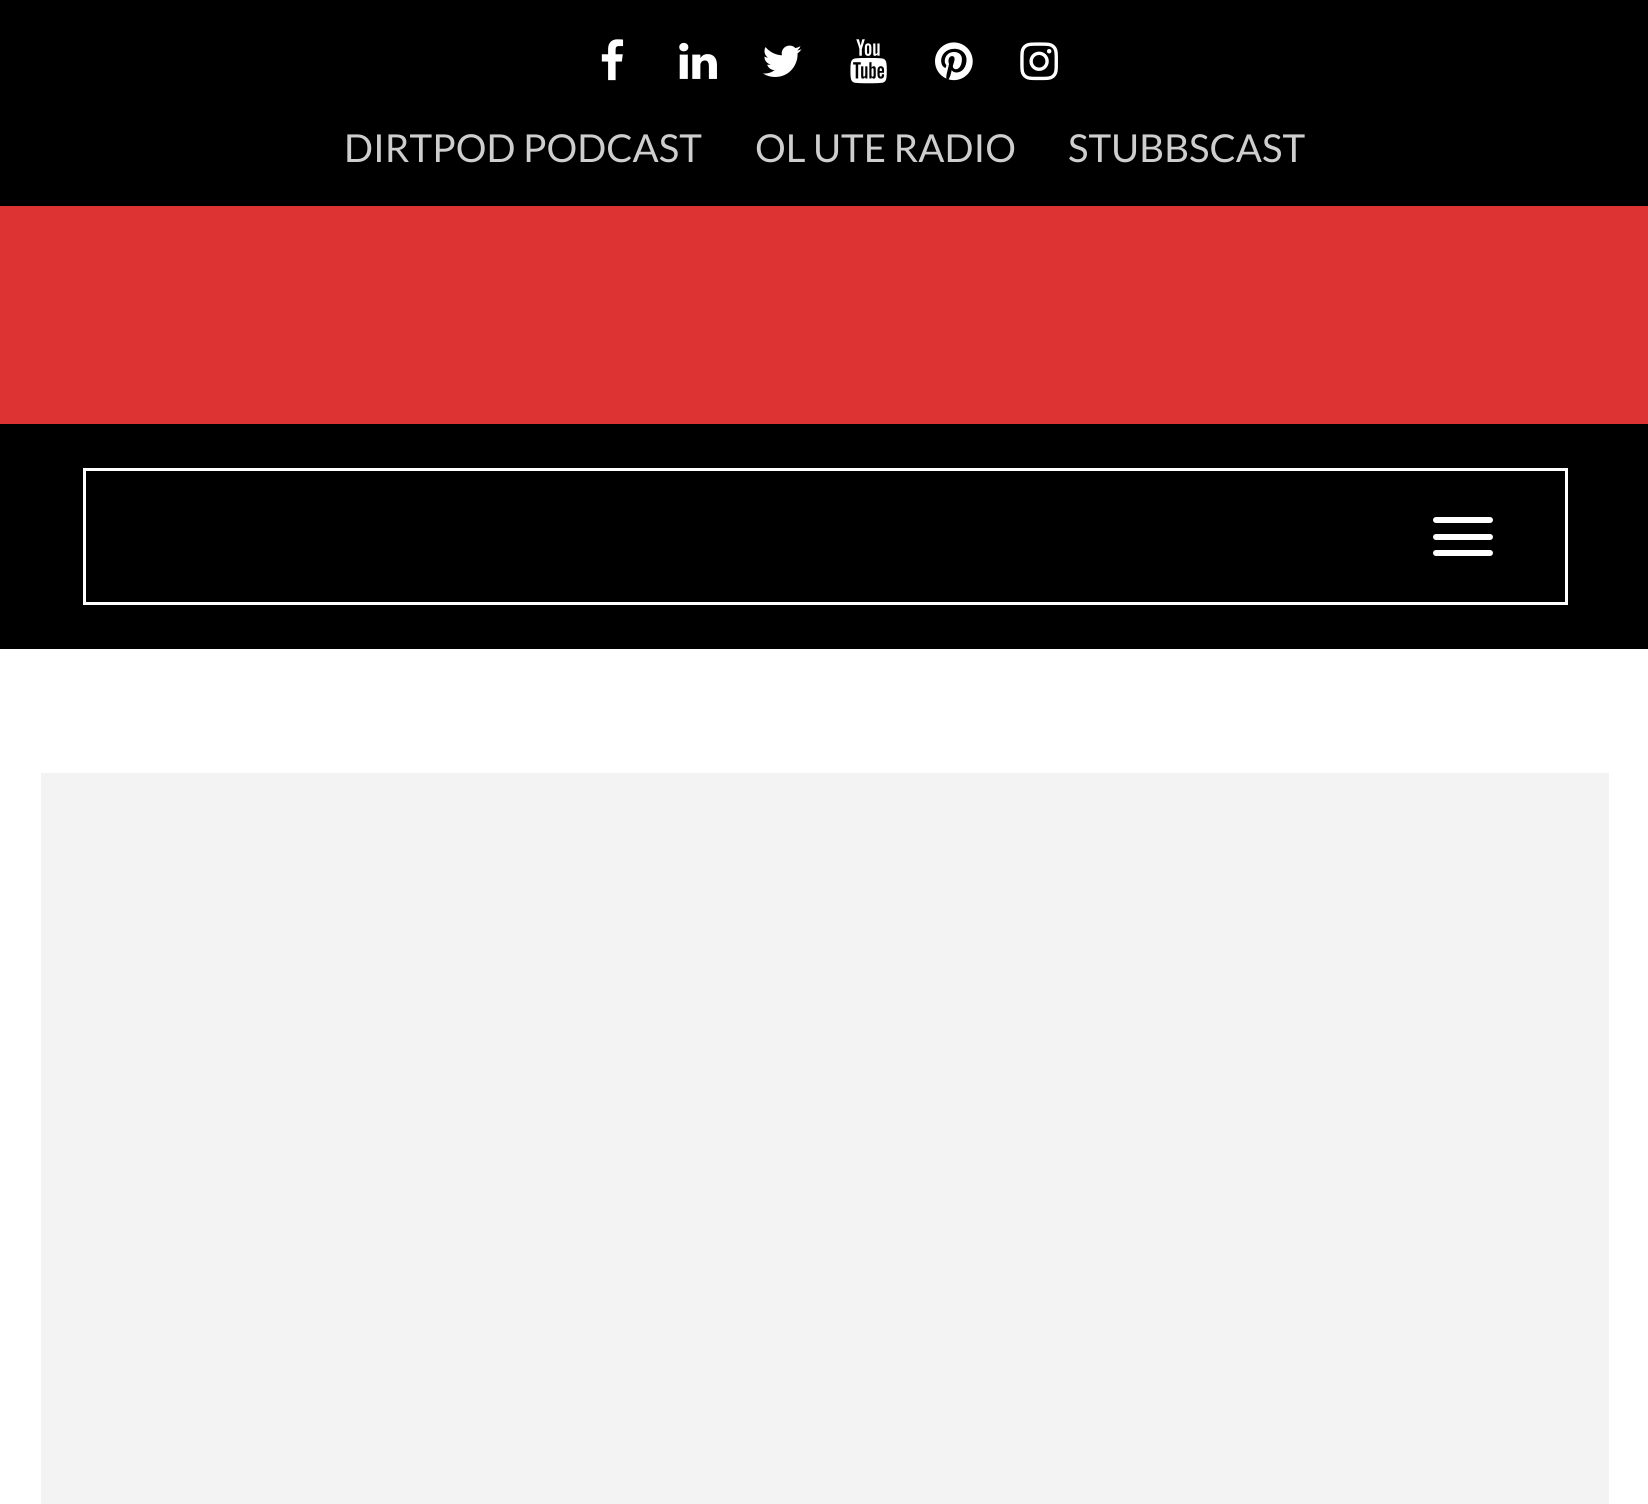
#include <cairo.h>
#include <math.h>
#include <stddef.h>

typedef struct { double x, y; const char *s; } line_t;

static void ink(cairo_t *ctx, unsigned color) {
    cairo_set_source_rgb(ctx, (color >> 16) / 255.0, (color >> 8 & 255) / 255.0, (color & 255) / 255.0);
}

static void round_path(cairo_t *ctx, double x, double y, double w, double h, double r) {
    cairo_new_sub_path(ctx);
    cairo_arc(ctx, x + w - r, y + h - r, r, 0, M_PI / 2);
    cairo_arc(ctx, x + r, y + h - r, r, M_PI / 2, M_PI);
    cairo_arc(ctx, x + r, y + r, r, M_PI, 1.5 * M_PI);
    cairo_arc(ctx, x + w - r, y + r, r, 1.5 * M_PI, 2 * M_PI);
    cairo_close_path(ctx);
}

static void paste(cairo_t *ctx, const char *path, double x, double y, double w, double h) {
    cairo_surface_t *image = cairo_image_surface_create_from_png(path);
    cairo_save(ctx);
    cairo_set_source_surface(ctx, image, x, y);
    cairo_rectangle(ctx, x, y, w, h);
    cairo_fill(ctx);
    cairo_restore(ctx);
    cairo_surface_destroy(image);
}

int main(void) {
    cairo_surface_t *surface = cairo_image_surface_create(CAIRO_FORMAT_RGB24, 1648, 1504);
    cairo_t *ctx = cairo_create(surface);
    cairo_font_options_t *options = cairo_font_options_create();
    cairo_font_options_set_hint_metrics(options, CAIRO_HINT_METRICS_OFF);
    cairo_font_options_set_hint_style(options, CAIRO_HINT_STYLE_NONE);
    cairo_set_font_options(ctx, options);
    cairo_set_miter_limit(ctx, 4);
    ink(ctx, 0xFFFFFF);
    cairo_paint(ctx);
    ink(ctx, 0x000000);
    cairo_rectangle(ctx, 0, 0, 1648, 206);
    cairo_fill(ctx);
    paste(ctx, "media/1.png", 601, 39, 23, 42);
    paste(ctx, "media/2.png", 679, 42, 38, 37);
    paste(ctx, "media/3.png", 763, 45, 39, 32);
    paste(ctx, "media/4.png", 850, 39, 37, 45);
    paste(ctx, "media/5.png", 935, 42, 38, 39);
    paste(ctx, "media/6.png", 1020, 42, 38, 39);
    cairo_select_font_face(ctx, "Lato", CAIRO_FONT_SLANT_NORMAL, CAIRO_FONT_WEIGHT_NORMAL);
    cairo_set_font_size(ctx, 38.5);
    ink(ctx, 0xCECECE);
    {
        static const line_t items[] = {
            {344, 162, "DIRTPOD PODCAST"},
            {755, 162, "OL UTE RADIO"},
            {1068, 162, "STUBBSCAST"},
        };
        for (size_t i = 0; i < sizeof items / sizeof *items; i++) {
            cairo_move_to(ctx, items[i].x, items[i].y);
            cairo_show_text(ctx, items[i].s);
        }
    }
    ink(ctx, 0xDD3333);
    cairo_rectangle(ctx, 0, 206, 1648, 218);
    cairo_fill(ctx);
    ink(ctx, 0x000000);
    cairo_rectangle(ctx, 0, 424, 1648, 225);
    cairo_fill(ctx);
    cairo_rectangle(ctx, 84.5, 469.5, 1482, 134);
    ink(ctx, 0xFFFFFF);
    cairo_set_line_width(ctx, 3);
    cairo_stroke(ctx);
    round_path(ctx, 1433, 517, 60, 6, 3);
    cairo_fill(ctx);
    round_path(ctx, 1433, 534, 60, 6, 3);
    cairo_fill(ctx);
    round_path(ctx, 1433, 550, 60, 6, 3);
    cairo_fill(ctx);
    cairo_rectangle(ctx, 42.5, 774.5, 1565, 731);
    ink(ctx, 0xF3F3F3);
    cairo_stroke(ctx);
    cairo_rectangle(ctx, 44, 776, 1562, 728);
    cairo_fill(ctx);
    cairo_surface_write_to_png(surface, "image.png");
    cairo_font_options_destroy(options);
    cairo_destroy(ctx);
    cairo_surface_destroy(surface);
    return 0;
}
